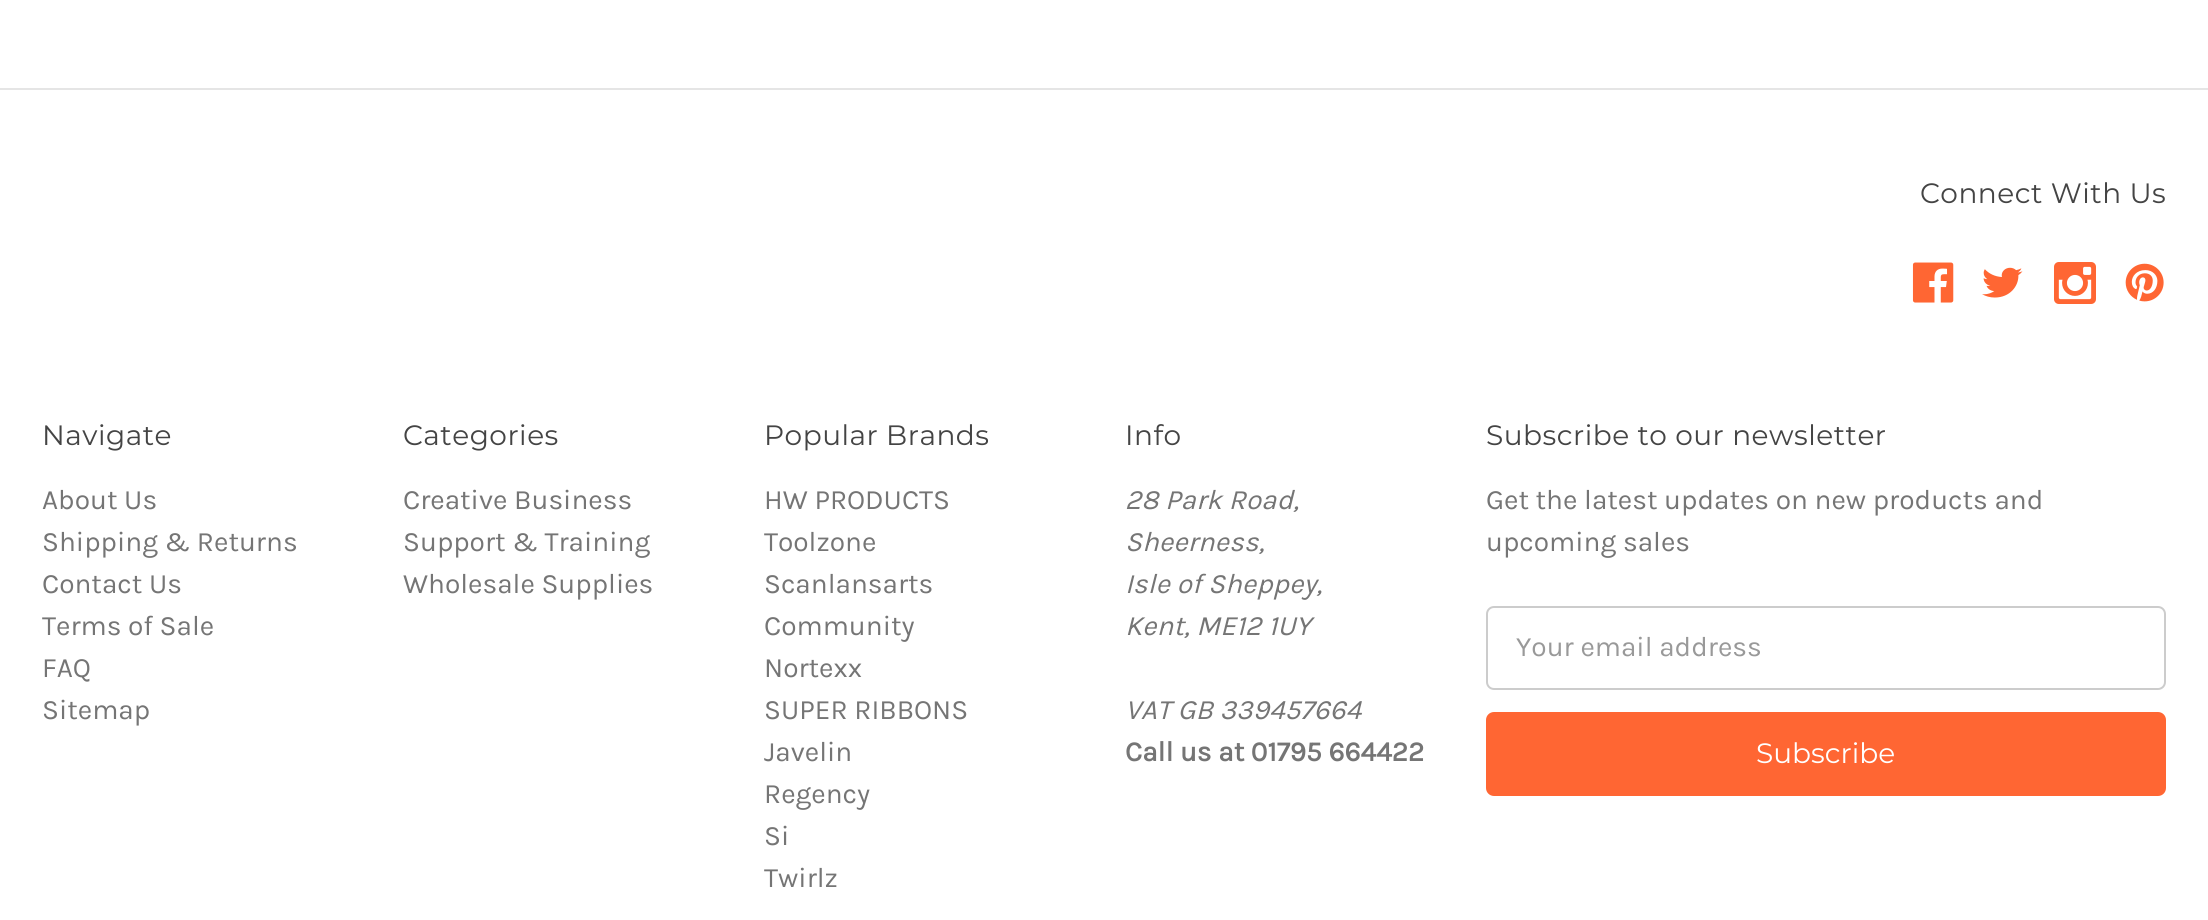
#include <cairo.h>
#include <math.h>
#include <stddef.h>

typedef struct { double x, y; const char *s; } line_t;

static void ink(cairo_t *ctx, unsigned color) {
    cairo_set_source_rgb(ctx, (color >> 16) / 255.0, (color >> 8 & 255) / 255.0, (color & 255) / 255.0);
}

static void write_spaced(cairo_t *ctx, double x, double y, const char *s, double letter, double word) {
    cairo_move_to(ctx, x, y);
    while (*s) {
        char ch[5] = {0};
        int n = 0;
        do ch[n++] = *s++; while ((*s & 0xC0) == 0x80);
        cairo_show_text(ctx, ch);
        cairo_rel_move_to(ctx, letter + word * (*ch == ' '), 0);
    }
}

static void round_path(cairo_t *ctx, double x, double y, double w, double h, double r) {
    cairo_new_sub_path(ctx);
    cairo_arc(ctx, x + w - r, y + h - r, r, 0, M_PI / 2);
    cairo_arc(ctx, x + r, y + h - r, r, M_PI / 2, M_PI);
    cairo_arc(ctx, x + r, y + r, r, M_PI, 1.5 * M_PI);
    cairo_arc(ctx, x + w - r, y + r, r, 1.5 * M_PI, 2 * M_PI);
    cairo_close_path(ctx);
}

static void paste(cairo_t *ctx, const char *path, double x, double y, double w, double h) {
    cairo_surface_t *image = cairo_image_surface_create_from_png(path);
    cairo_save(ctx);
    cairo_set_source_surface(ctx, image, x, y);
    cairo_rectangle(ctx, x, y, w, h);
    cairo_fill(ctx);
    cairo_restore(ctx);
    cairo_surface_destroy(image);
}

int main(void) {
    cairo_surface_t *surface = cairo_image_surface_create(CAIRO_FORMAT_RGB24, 2208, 920);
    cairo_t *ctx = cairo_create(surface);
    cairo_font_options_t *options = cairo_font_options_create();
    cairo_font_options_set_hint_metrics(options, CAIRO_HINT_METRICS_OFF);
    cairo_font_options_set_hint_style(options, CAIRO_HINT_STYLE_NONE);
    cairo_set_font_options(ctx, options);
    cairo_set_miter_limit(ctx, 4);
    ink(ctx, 0xFFFFFF);
    cairo_paint(ctx);
    ink(ctx, 0xE5E5E5);
    cairo_rectangle(ctx, 0, 88, 2208, 2);
    cairo_fill(ctx);
    cairo_select_font_face(ctx, "Montserrat", CAIRO_FONT_SLANT_NORMAL, CAIRO_FONT_WEIGHT_NORMAL);
    cairo_set_font_size(ctx, 28);
    ink(ctx, 0x444444);
    write_spaced(ctx, 1920, 203, "Connect With Us", 0.5, 0);
    paste(ctx, "media/1.png", 1912, 262, 42, 41);
    paste(ctx, "media/2.png", 1982, 267, 41, 31);
    paste(ctx, "media/3.png", 2054, 262, 42, 42);
    paste(ctx, "media/4.png", 2125, 263, 39, 39);
    write_spaced(ctx, 42, 445, "Navigate", 0.5, 0);
    cairo_select_font_face(ctx, "Karla", CAIRO_FONT_SLANT_NORMAL, CAIRO_FONT_WEIGHT_NORMAL);
    ink(ctx, 0x757575);
    {
        static const line_t items[] = {
            {42, 509, "About Us"},
            {42, 551, "Shipping & Returns"},
            {42, 593, "Contact Us"},
            {42, 635, "Terms of Sale"},
            {42, 677, "FAQ"},
            {42, 719, "Sitemap"},
        };
        for (size_t i = 0; i < sizeof items / sizeof *items; i++) {
            cairo_move_to(ctx, items[i].x, items[i].y);
            cairo_show_text(ctx, items[i].s);
        }
    }
    cairo_select_font_face(ctx, "Montserrat", CAIRO_FONT_SLANT_NORMAL, CAIRO_FONT_WEIGHT_NORMAL);
    ink(ctx, 0x444444);
    write_spaced(ctx, 403, 445, "Categories", 0.5, 0);
    cairo_select_font_face(ctx, "Karla", CAIRO_FONT_SLANT_NORMAL, CAIRO_FONT_WEIGHT_NORMAL);
    ink(ctx, 0x757575);
    {
        static const line_t items[] = {
            {403, 509, "Creative Business"},
            {403, 551, "Support & Training"},
            {403, 593, "Wholesale Supplies"},
        };
        for (size_t i = 0; i < sizeof items / sizeof *items; i++) {
            cairo_move_to(ctx, items[i].x, items[i].y);
            cairo_show_text(ctx, items[i].s);
        }
    }
    cairo_select_font_face(ctx, "Montserrat", CAIRO_FONT_SLANT_NORMAL, CAIRO_FONT_WEIGHT_NORMAL);
    ink(ctx, 0x444444);
    write_spaced(ctx, 764, 445, "Popular Brands", 0.5, 0);
    cairo_select_font_face(ctx, "Karla", CAIRO_FONT_SLANT_NORMAL, CAIRO_FONT_WEIGHT_NORMAL);
    ink(ctx, 0x757575);
    {
        static const line_t items[] = {
            {764, 509, "HW PRODUCTS"},
            {764, 551, "Toolzone"},
            {764, 593, "Scanlansarts"},
            {764, 635, "Community"},
            {764, 677, "Nortexx"},
            {764, 719, "SUPER RIBBONS"},
            {764, 761, "Javelin"},
            {764, 803, "Regency"},
            {764, 845, "Si"},
            {764, 887, "Twirlz"},
        };
        for (size_t i = 0; i < sizeof items / sizeof *items; i++) {
            cairo_move_to(ctx, items[i].x, items[i].y);
            cairo_show_text(ctx, items[i].s);
        }
    }
    cairo_select_font_face(ctx, "Montserrat", CAIRO_FONT_SLANT_NORMAL, CAIRO_FONT_WEIGHT_NORMAL);
    ink(ctx, 0x444444);
    write_spaced(ctx, 1125, 445, "Info", 0.5, 0);
    cairo_select_font_face(ctx, "Karla", CAIRO_FONT_SLANT_ITALIC, CAIRO_FONT_WEIGHT_NORMAL);
    ink(ctx, 0x757575);
    {
        static const line_t items[] = {
            {1125, 509, "28 Park Road,"},
            {1125, 551, "Sheerness,"},
            {1125, 593, "Isle of Sheppey,"},
            {1125, 635, "Kent, ME12 1UY"},
            {1125, 719, "VAT GB 339457664"},
        };
        for (size_t i = 0; i < sizeof items / sizeof *items; i++) {
            cairo_move_to(ctx, items[i].x, items[i].y);
            cairo_show_text(ctx, items[i].s);
        }
    }
    cairo_select_font_face(ctx, "Karla", CAIRO_FONT_SLANT_NORMAL, CAIRO_FONT_WEIGHT_BOLD);
    cairo_move_to(ctx, 1125, 761);
    cairo_show_text(ctx, "Call us at 01795 664422");
    cairo_select_font_face(ctx, "Montserrat", CAIRO_FONT_SLANT_NORMAL, CAIRO_FONT_WEIGHT_NORMAL);
    ink(ctx, 0x444444);
    write_spaced(ctx, 1486, 445, "Subscribe to our newsletter", 0.5, 0);
    cairo_select_font_face(ctx, "Karla", CAIRO_FONT_SLANT_NORMAL, CAIRO_FONT_WEIGHT_NORMAL);
    ink(ctx, 0x757575);
    cairo_move_to(ctx, 1486, 509);
    cairo_show_text(ctx, "Get the latest updates on new products and");
    cairo_move_to(ctx, 1486, 551);
    cairo_show_text(ctx, "upcoming sales");
    round_path(ctx, 1487, 607, 678, 82, 7);
    ink(ctx, 0xCCCCCC);
    cairo_stroke(ctx);
    ink(ctx, 0x999999);
    cairo_move_to(ctx, 1516, 656);
    cairo_show_text(ctx, "Your email address");
    ink(ctx, 0xFF6633);
    round_path(ctx, 1487, 713, 678, 82, 7);
    cairo_fill_preserve(ctx);
    cairo_stroke(ctx);
    cairo_select_font_face(ctx, "Montserrat", CAIRO_FONT_SLANT_NORMAL, CAIRO_FONT_WEIGHT_NORMAL);
    ink(ctx, 0xFFFFFF);
    cairo_move_to(ctx, 1756, 763);
    cairo_show_text(ctx, "Subscribe");
    cairo_surface_write_to_png(surface, "image.png");
    cairo_font_options_destroy(options);
    cairo_destroy(ctx);
    cairo_surface_destroy(surface);
    return 0;
}
